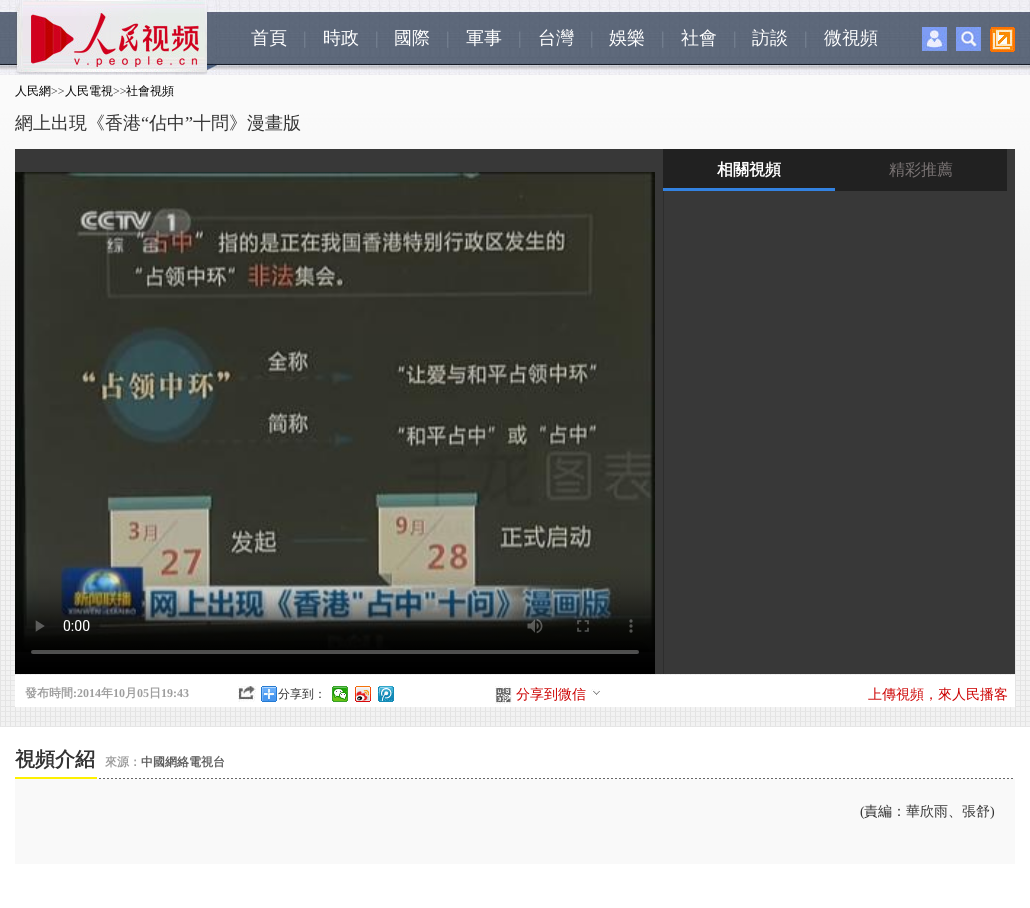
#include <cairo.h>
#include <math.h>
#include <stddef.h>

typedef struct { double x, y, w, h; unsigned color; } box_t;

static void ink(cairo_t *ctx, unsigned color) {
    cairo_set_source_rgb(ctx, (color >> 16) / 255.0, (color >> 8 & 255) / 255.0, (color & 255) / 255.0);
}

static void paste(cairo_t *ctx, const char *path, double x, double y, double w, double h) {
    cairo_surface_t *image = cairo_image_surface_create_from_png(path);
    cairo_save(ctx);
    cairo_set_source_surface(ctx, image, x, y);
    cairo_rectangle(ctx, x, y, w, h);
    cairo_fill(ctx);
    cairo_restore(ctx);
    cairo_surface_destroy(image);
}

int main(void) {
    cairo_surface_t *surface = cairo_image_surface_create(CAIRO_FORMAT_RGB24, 1030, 908);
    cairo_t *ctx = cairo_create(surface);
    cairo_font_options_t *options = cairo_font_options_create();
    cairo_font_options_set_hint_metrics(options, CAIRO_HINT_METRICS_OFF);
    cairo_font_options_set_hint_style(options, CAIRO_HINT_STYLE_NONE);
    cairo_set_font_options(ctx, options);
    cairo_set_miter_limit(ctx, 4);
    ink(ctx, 0xFFFFFF);
    cairo_paint(ctx);
    paste(ctx, "media/1.png", 0, 0, 1030, 75);
    paste(ctx, "media/2.png", 15, 0, 202, 75);
    cairo_select_font_face(ctx, "WenQuanYi Zen Hei Medium", CAIRO_FONT_SLANT_NORMAL, CAIRO_FONT_WEIGHT_NORMAL);
    cairo_set_font_size(ctx, 18);
    ink(ctx, 0xFFFFFF);
    cairo_move_to(ctx, 251, 44);
    cairo_show_text(ctx, "首頁");
    cairo_select_font_face(ctx, "Liberation Serif", CAIRO_FONT_SLANT_NORMAL, CAIRO_FONT_WEIGHT_NORMAL);
    ink(ctx, 0x7B8797);
    cairo_move_to(ctx, 303, 44);
    cairo_show_text(ctx, "|");
    cairo_select_font_face(ctx, "WenQuanYi Zen Hei Medium", CAIRO_FONT_SLANT_NORMAL, CAIRO_FONT_WEIGHT_NORMAL);
    ink(ctx, 0xFFFFFF);
    cairo_move_to(ctx, 323, 44);
    cairo_show_text(ctx, "時政");
    cairo_select_font_face(ctx, "Liberation Serif", CAIRO_FONT_SLANT_NORMAL, CAIRO_FONT_WEIGHT_NORMAL);
    ink(ctx, 0x7B8797);
    cairo_move_to(ctx, 375, 44);
    cairo_show_text(ctx, "|");
    cairo_select_font_face(ctx, "WenQuanYi Zen Hei Medium", CAIRO_FONT_SLANT_NORMAL, CAIRO_FONT_WEIGHT_NORMAL);
    ink(ctx, 0xFFFFFF);
    cairo_move_to(ctx, 394, 44);
    cairo_show_text(ctx, "國際");
    cairo_select_font_face(ctx, "Liberation Serif", CAIRO_FONT_SLANT_NORMAL, CAIRO_FONT_WEIGHT_NORMAL);
    ink(ctx, 0x7B8797);
    cairo_move_to(ctx, 446, 44);
    cairo_show_text(ctx, "|");
    cairo_select_font_face(ctx, "WenQuanYi Zen Hei Medium", CAIRO_FONT_SLANT_NORMAL, CAIRO_FONT_WEIGHT_NORMAL);
    ink(ctx, 0xFFFFFF);
    cairo_move_to(ctx, 466, 44);
    cairo_show_text(ctx, "軍事");
    cairo_select_font_face(ctx, "Liberation Serif", CAIRO_FONT_SLANT_NORMAL, CAIRO_FONT_WEIGHT_NORMAL);
    ink(ctx, 0x7B8797);
    cairo_move_to(ctx, 518, 44);
    cairo_show_text(ctx, "|");
    cairo_select_font_face(ctx, "WenQuanYi Zen Hei Medium", CAIRO_FONT_SLANT_NORMAL, CAIRO_FONT_WEIGHT_NORMAL);
    ink(ctx, 0xFFFFFF);
    cairo_move_to(ctx, 538, 44);
    cairo_show_text(ctx, "台灣");
    cairo_select_font_face(ctx, "Liberation Serif", CAIRO_FONT_SLANT_NORMAL, CAIRO_FONT_WEIGHT_NORMAL);
    ink(ctx, 0x7B8797);
    cairo_move_to(ctx, 590, 44);
    cairo_show_text(ctx, "|");
    cairo_select_font_face(ctx, "WenQuanYi Zen Hei Medium", CAIRO_FONT_SLANT_NORMAL, CAIRO_FONT_WEIGHT_NORMAL);
    ink(ctx, 0xFFFFFF);
    cairo_move_to(ctx, 609, 44);
    cairo_show_text(ctx, "娛樂");
    cairo_select_font_face(ctx, "Liberation Serif", CAIRO_FONT_SLANT_NORMAL, CAIRO_FONT_WEIGHT_NORMAL);
    ink(ctx, 0x7B8797);
    cairo_move_to(ctx, 661, 44);
    cairo_show_text(ctx, "|");
    cairo_select_font_face(ctx, "WenQuanYi Zen Hei Medium", CAIRO_FONT_SLANT_NORMAL, CAIRO_FONT_WEIGHT_NORMAL);
    ink(ctx, 0xFFFFFF);
    cairo_move_to(ctx, 681, 44);
    cairo_show_text(ctx, "社會");
    cairo_select_font_face(ctx, "Liberation Serif", CAIRO_FONT_SLANT_NORMAL, CAIRO_FONT_WEIGHT_NORMAL);
    ink(ctx, 0x7B8797);
    cairo_move_to(ctx, 733, 44);
    cairo_show_text(ctx, "|");
    cairo_select_font_face(ctx, "WenQuanYi Zen Hei Medium", CAIRO_FONT_SLANT_NORMAL, CAIRO_FONT_WEIGHT_NORMAL);
    ink(ctx, 0xFFFFFF);
    cairo_move_to(ctx, 752, 44);
    cairo_show_text(ctx, "訪談");
    cairo_select_font_face(ctx, "Liberation Serif", CAIRO_FONT_SLANT_NORMAL, CAIRO_FONT_WEIGHT_NORMAL);
    ink(ctx, 0x7B8797);
    cairo_move_to(ctx, 804, 44);
    cairo_show_text(ctx, "|");
    cairo_select_font_face(ctx, "WenQuanYi Zen Hei Medium", CAIRO_FONT_SLANT_NORMAL, CAIRO_FONT_WEIGHT_NORMAL);
    ink(ctx, 0xFFFFFF);
    cairo_move_to(ctx, 824, 44);
    cairo_show_text(ctx, "微視頻");
    paste(ctx, "media/3.png", 922, 27, 25, 25);
    paste(ctx, "media/4.png", 956, 27, 25, 25);
    paste(ctx, "media/5.png", 990, 27, 25, 25);
    paste(ctx, "media/6.png", 0, 75, 1030, 652);
    cairo_set_font_size(ctx, 12);
    ink(ctx, 0x000000);
    cairo_move_to(ctx, 15, 95);
    cairo_show_text(ctx, "人民網");
    cairo_select_font_face(ctx, "Liberation Serif", CAIRO_FONT_SLANT_NORMAL, CAIRO_FONT_WEIGHT_NORMAL);
    ink(ctx, 0x333333);
    cairo_move_to(ctx, 51, 95);
    cairo_show_text(ctx, ">>");
    cairo_select_font_face(ctx, "WenQuanYi Zen Hei Medium", CAIRO_FONT_SLANT_NORMAL, CAIRO_FONT_WEIGHT_NORMAL);
    ink(ctx, 0x000000);
    cairo_move_to(ctx, 65, 95);
    cairo_show_text(ctx, "人民電視");
    cairo_select_font_face(ctx, "Liberation Serif", CAIRO_FONT_SLANT_NORMAL, CAIRO_FONT_WEIGHT_NORMAL);
    ink(ctx, 0x333333);
    cairo_move_to(ctx, 113, 95);
    cairo_show_text(ctx, ">>");
    cairo_select_font_face(ctx, "WenQuanYi Zen Hei Medium", CAIRO_FONT_SLANT_NORMAL, CAIRO_FONT_WEIGHT_NORMAL);
    ink(ctx, 0x000000);
    cairo_move_to(ctx, 126, 95);
    cairo_show_text(ctx, "社會視頻");
    cairo_set_font_size(ctx, 18);
    ink(ctx, 0x333333);
    cairo_move_to(ctx, 15, 129);
    cairo_show_text(ctx, "網上出現《香港");
    cairo_select_font_face(ctx, "Liberation Serif", CAIRO_FONT_SLANT_NORMAL, CAIRO_FONT_WEIGHT_NORMAL);
    cairo_move_to(ctx, 141, 129);
    cairo_show_text(ctx, "“");
    cairo_select_font_face(ctx, "WenQuanYi Zen Hei Medium", CAIRO_FONT_SLANT_NORMAL, CAIRO_FONT_WEIGHT_NORMAL);
    cairo_move_to(ctx, 149, 129);
    cairo_show_text(ctx, "佔中");
    cairo_select_font_face(ctx, "Liberation Serif", CAIRO_FONT_SLANT_NORMAL, CAIRO_FONT_WEIGHT_NORMAL);
    cairo_move_to(ctx, 185, 129);
    cairo_show_text(ctx, "”");
    cairo_select_font_face(ctx, "WenQuanYi Zen Hei Medium", CAIRO_FONT_SLANT_NORMAL, CAIRO_FONT_WEIGHT_NORMAL);
    cairo_move_to(ctx, 193, 129);
    cairo_show_text(ctx, "十問》漫畫版");
    {
        static const box_t items[] = {
            {15, 149, 1000, 525, 0x383838},
            {663, 149, 172, 39, 0x212121},
            {663, 188, 172, 3, 0x3382E1},
        };
        for (size_t i = 0; i < sizeof items / sizeof *items; i++) {
            ink(ctx, items[i].color);
            cairo_rectangle(ctx, items[i].x, items[i].y, items[i].w, items[i].h);
            cairo_fill(ctx);
        }
    }
    cairo_select_font_face(ctx, "WenQuanYi Zen Hei", CAIRO_FONT_SLANT_NORMAL, CAIRO_FONT_WEIGHT_BOLD);
    cairo_set_font_size(ctx, 16);
    ink(ctx, 0xFFFFFF);
    cairo_move_to(ctx, 717, 175);
    cairo_show_text(ctx, "相關視頻");
    ink(ctx, 0x212121);
    cairo_rectangle(ctx, 835, 149, 172, 42);
    cairo_fill(ctx);
    cairo_select_font_face(ctx, "WenQuanYi Zen Hei Medium", CAIRO_FONT_SLANT_NORMAL, CAIRO_FONT_WEIGHT_NORMAL);
    ink(ctx, 0x797373);
    cairo_move_to(ctx, 889, 175);
    cairo_show_text(ctx, "精彩推薦");
    ink(ctx, 0x2D2D2D);
    cairo_rectangle(ctx, 663, 191, 1, 483);
    cairo_fill(ctx);
    paste(ctx, "media/7.png", 15, 172, 640, 502);
    ink(ctx, 0xFFFFFF);
    cairo_rectangle(ctx, 15, 675, 1000, 32);
    cairo_fill(ctx);
    cairo_select_font_face(ctx, "WenQuanYi Zen Hei", CAIRO_FONT_SLANT_NORMAL, CAIRO_FONT_WEIGHT_BOLD);
    cairo_set_font_size(ctx, 12);
    ink(ctx, 0x9E9E9E);
    cairo_move_to(ctx, 25, 697);
    cairo_show_text(ctx, "發布時間");
    cairo_select_font_face(ctx, "Liberation Serif", CAIRO_FONT_SLANT_NORMAL, CAIRO_FONT_WEIGHT_BOLD);
    cairo_move_to(ctx, 73, 697);
    cairo_show_text(ctx, ":2014");
    cairo_select_font_face(ctx, "WenQuanYi Zen Hei", CAIRO_FONT_SLANT_NORMAL, CAIRO_FONT_WEIGHT_BOLD);
    cairo_move_to(ctx, 101, 697);
    cairo_show_text(ctx, "年");
    cairo_select_font_face(ctx, "Liberation Serif", CAIRO_FONT_SLANT_NORMAL, CAIRO_FONT_WEIGHT_BOLD);
    cairo_move_to(ctx, 113, 697);
    cairo_show_text(ctx, "10");
    cairo_select_font_face(ctx, "WenQuanYi Zen Hei", CAIRO_FONT_SLANT_NORMAL, CAIRO_FONT_WEIGHT_BOLD);
    cairo_move_to(ctx, 125, 697);
    cairo_show_text(ctx, "月");
    cairo_select_font_face(ctx, "Liberation Serif", CAIRO_FONT_SLANT_NORMAL, CAIRO_FONT_WEIGHT_BOLD);
    cairo_move_to(ctx, 137, 697);
    cairo_show_text(ctx, "05");
    cairo_select_font_face(ctx, "WenQuanYi Zen Hei", CAIRO_FONT_SLANT_NORMAL, CAIRO_FONT_WEIGHT_BOLD);
    cairo_move_to(ctx, 149, 697);
    cairo_show_text(ctx, "日");
    cairo_select_font_face(ctx, "Liberation Serif", CAIRO_FONT_SLANT_NORMAL, CAIRO_FONT_WEIGHT_BOLD);
    cairo_move_to(ctx, 161, 697);
    cairo_show_text(ctx, "19:43");
    paste(ctx, "media/8.png", 238, 686, 18, 16);
    paste(ctx, "media/9.png", 261, 686, 16, 16);
    cairo_select_font_face(ctx, "WenQuanYi Zen Hei Medium", CAIRO_FONT_SLANT_NORMAL, CAIRO_FONT_WEIGHT_NORMAL);
    ink(ctx, 0x333333);
    cairo_move_to(ctx, 278, 698);
    cairo_show_text(ctx, "分享到：");
    paste(ctx, "media/10.png", 332, 686, 16, 16);
    paste(ctx, "media/11.png", 355, 686, 16, 16);
    paste(ctx, "media/12.png", 378, 686, 16, 16);
    paste(ctx, "media/13.png", 495, 686, 17, 18);
    cairo_set_font_size(ctx, 14);
    ink(ctx, 0xCC0000);
    cairo_move_to(ctx, 516, 699);
    cairo_show_text(ctx, "分享到微信");
    paste(ctx, "media/14.png", 591, 689, 9, 6);
    cairo_move_to(ctx, 868, 699);
    cairo_show_text(ctx, "上傳視頻，來人民播客");
    paste(ctx, "media/15.png", 15, 777, 998, 2);
    cairo_select_font_face(ctx, "WenQuanYi Zen Hei", CAIRO_FONT_SLANT_NORMAL, CAIRO_FONT_WEIGHT_BOLD);
    cairo_set_font_size(ctx, 20);
    ink(ctx, 0x333333);
    cairo_move_to(ctx, 15, 766);
    cairo_show_text(ctx, "視頻介紹");
    cairo_set_font_size(ctx, 12);
    ink(ctx, 0x9E9E9E);
    cairo_move_to(ctx, 105, 766);
    cairo_show_text(ctx, "來源：");
    ink(ctx, 0x5E5E5E);
    cairo_move_to(ctx, 141, 766);
    cairo_show_text(ctx, "中國網絡電視台");
    ink(ctx, 0xF9F9F9);
    cairo_rectangle(ctx, 15, 779, 1000, 85);
    cairo_fill(ctx);
    cairo_select_font_face(ctx, "Liberation Serif", CAIRO_FONT_SLANT_NORMAL, CAIRO_FONT_WEIGHT_NORMAL);
    cairo_set_font_size(ctx, 14);
    ink(ctx, 0x333333);
    cairo_move_to(ctx, 860, 816);
    cairo_show_text(ctx, "(");
    cairo_select_font_face(ctx, "WenQuanYi Zen Hei Medium", CAIRO_FONT_SLANT_NORMAL, CAIRO_FONT_WEIGHT_NORMAL);
    cairo_move_to(ctx, 864, 816);
    cairo_show_text(ctx, "責編：華欣雨、張舒");
    cairo_select_font_face(ctx, "Liberation Serif", CAIRO_FONT_SLANT_NORMAL, CAIRO_FONT_WEIGHT_NORMAL);
    cairo_move_to(ctx, 990, 816);
    cairo_show_text(ctx, ")");
    cairo_surface_write_to_png(surface, "image.png");
    cairo_font_options_destroy(options);
    cairo_destroy(ctx);
    cairo_surface_destroy(surface);
    return 0;
}
